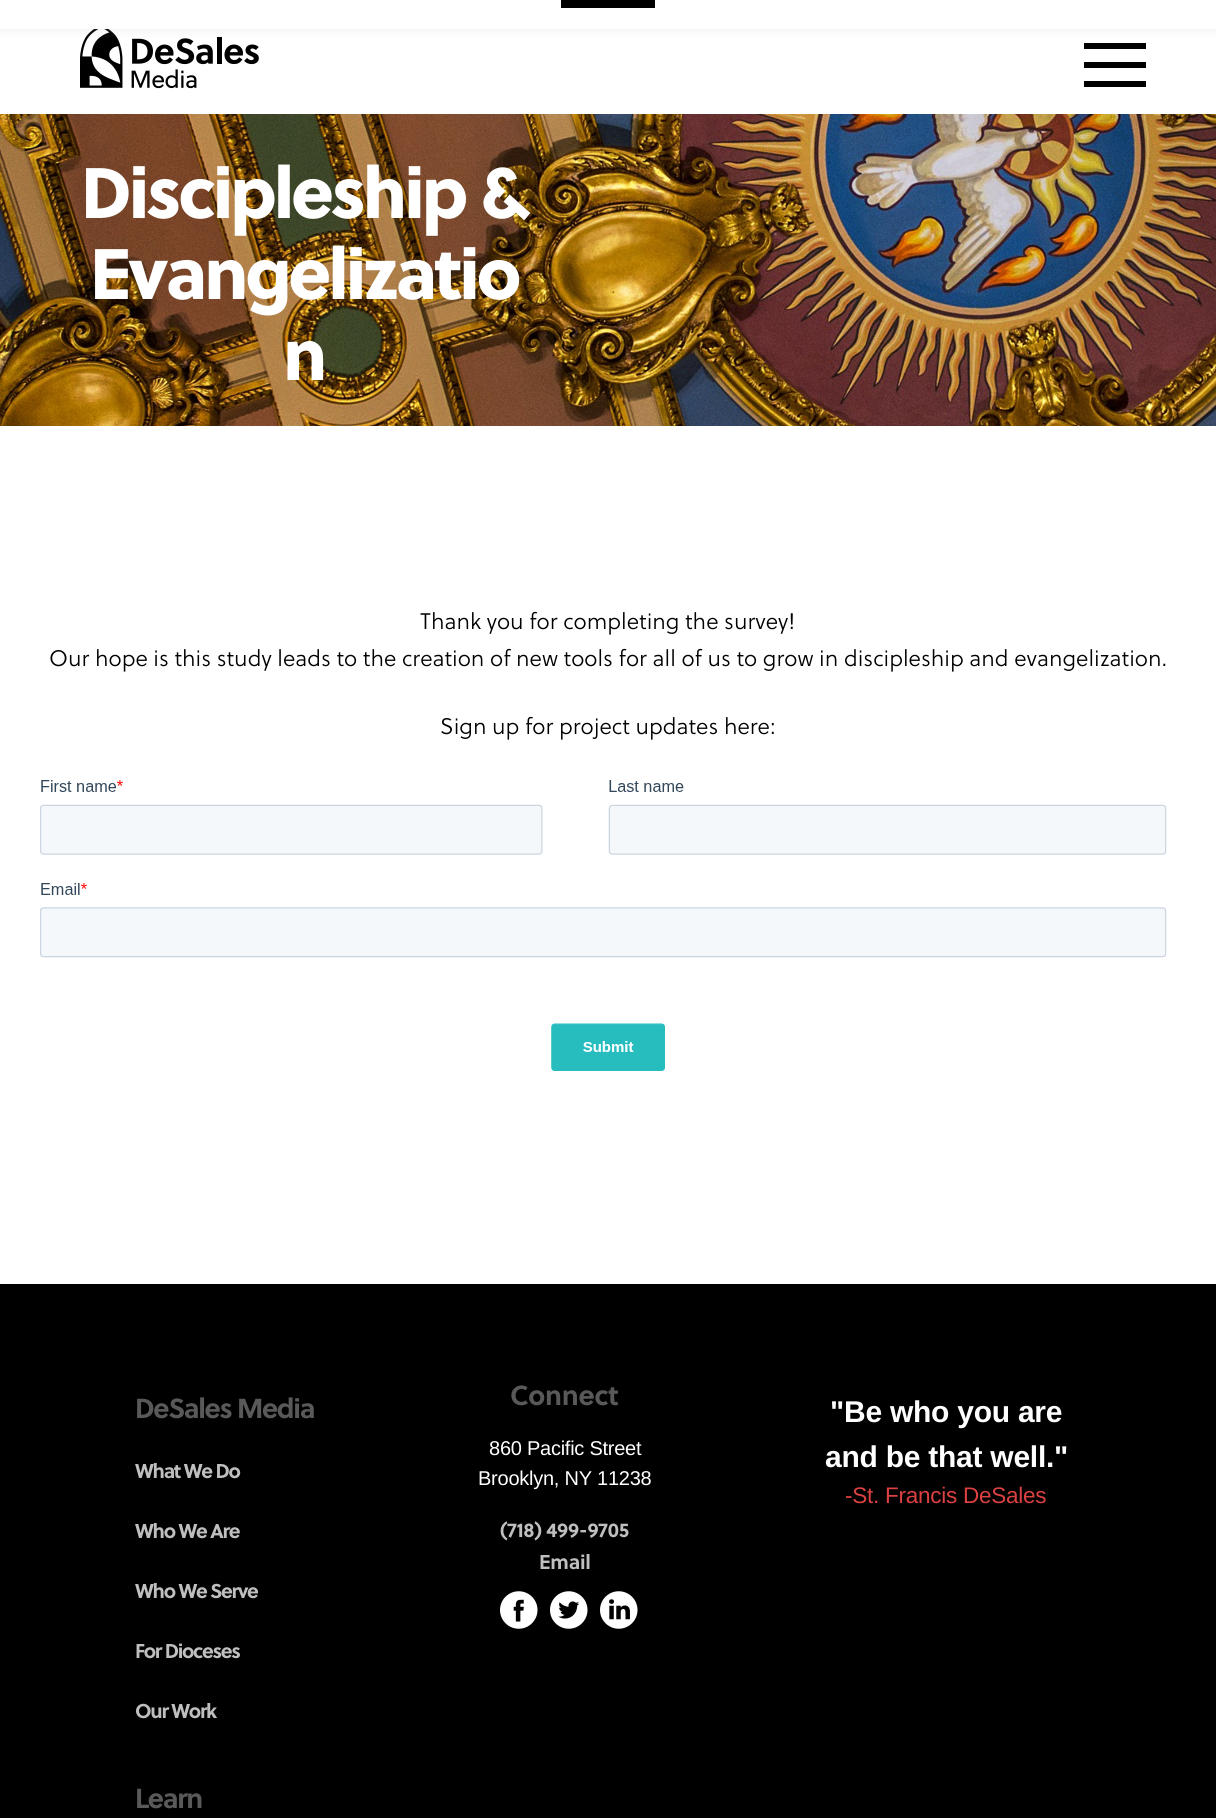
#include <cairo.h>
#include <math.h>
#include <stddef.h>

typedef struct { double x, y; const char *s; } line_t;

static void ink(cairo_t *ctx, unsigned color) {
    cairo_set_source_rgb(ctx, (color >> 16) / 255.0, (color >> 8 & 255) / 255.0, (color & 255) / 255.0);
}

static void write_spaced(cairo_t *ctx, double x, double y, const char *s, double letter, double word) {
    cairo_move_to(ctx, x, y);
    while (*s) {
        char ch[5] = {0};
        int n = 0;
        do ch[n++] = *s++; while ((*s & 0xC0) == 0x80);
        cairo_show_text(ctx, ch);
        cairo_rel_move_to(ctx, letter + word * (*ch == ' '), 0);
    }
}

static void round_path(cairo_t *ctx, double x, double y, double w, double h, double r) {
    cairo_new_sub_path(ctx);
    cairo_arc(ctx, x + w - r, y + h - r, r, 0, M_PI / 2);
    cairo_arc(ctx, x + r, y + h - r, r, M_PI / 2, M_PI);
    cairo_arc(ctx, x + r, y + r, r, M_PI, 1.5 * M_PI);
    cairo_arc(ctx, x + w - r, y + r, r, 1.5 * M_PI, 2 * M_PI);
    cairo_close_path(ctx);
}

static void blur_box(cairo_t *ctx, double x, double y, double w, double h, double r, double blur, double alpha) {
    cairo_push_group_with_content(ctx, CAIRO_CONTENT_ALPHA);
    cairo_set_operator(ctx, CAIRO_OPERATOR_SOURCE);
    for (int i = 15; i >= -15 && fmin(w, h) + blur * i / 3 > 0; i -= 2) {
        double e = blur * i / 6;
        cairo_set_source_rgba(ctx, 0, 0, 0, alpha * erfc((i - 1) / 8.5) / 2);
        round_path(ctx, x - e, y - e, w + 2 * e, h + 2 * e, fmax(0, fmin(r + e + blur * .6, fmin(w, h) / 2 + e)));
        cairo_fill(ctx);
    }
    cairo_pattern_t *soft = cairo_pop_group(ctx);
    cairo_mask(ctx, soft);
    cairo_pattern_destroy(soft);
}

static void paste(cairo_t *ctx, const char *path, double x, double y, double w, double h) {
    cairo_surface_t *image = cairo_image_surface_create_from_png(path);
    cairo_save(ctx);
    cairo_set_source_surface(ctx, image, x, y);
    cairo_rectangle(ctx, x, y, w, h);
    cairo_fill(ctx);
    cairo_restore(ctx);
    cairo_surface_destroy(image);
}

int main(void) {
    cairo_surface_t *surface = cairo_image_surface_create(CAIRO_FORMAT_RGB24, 1216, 1818);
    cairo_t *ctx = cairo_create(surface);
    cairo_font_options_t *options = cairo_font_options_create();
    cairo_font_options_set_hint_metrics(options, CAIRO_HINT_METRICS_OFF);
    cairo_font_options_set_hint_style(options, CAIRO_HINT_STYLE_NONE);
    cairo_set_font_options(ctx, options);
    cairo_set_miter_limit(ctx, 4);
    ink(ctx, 0xFFFFFF);
    cairo_paint(ctx);
    paste(ctx, "media/1.png", 80, 29, 179, 60);
    ink(ctx, 0x000000);
    cairo_new_path(ctx);
    cairo_move_to(ctx, 1084, 43);
    cairo_line_to(ctx, 1084, 49);
    cairo_line_to(ctx, 1146, 49);
    cairo_line_to(ctx, 1146, 43);
    cairo_close_path(ctx);
    cairo_move_to(ctx, 1084, 62);
    cairo_line_to(ctx, 1084, 68);
    cairo_line_to(ctx, 1146, 68);
    cairo_line_to(ctx, 1146, 62);
    cairo_close_path(ctx);
    cairo_move_to(ctx, 1084, 81);
    cairo_line_to(ctx, 1084, 87);
    cairo_line_to(ctx, 1146, 87);
    cairo_line_to(ctx, 1146, 81);
    cairo_close_path(ctx);
    cairo_fill(ctx);
    ink(ctx, 0xACABAB);
    blur_box(ctx, 0, -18, 1216, 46, 0, 6, 0.3);
    ink(ctx, 0xFFFFFF);
    cairo_rectangle(ctx, 0, 0, 1216, 29);
    cairo_fill(ctx);
    ink(ctx, 0x000000);
    cairo_rectangle(ctx, 561, 0, 94, 8);
    cairo_fill(ctx);
    paste(ctx, "media/2.png", 0, 114, 1216, 312);
    cairo_select_font_face(ctx, "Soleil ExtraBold", CAIRO_FONT_SLANT_NORMAL, CAIRO_FONT_WEIGHT_NORMAL);
    cairo_set_font_size(ctx, 71.25);
    ink(ctx, 0xFFFFFF);
    {
        static const line_t items[] = {
            {81, 218, "Discipleship &"},
            {90, 299, "Evangelizatio"},
            {283, 380, "n"},
        };
        for (size_t i = 0; i < sizeof items / sizeof *items; i++) {
            write_spaced(ctx, items[i].x, items[i].y, items[i].s, -3, 0);
        }
    }
    cairo_select_font_face(ctx, "Soleil Light", CAIRO_FONT_SLANT_NORMAL, CAIRO_FONT_WEIGHT_NORMAL);
    cairo_set_font_size(ctx, 22.5);
    ink(ctx, 0x000000);
    {
        static const line_t items[] = {
            {420, 629, "Thank you for completing the survey!"},
            {49, 666, "Our hope is this study leads to the creation of new tools for all of us to grow in discipleship and evangelization."},
            {440, 734, "Sign up for project updates here:"},
        };
        for (size_t i = 0; i < sizeof items / sizeof *items; i++) {
            cairo_move_to(ctx, items[i].x, items[i].y);
            cairo_show_text(ctx, items[i].s);
        }
    }
    paste(ctx, "media/3.png", 40, 780, 1127, 291);
    cairo_rectangle(ctx, 0, 1284, 1216, 534);
    cairo_fill(ctx);
    cairo_select_font_face(ctx, "Soleil", CAIRO_FONT_SLANT_NORMAL, CAIRO_FONT_WEIGHT_BOLD);
    cairo_set_font_size(ctx, 27.5);
    ink(ctx, 0x595959);
    write_spaced(ctx, 135, 1418, "DeSales Media", -1.3, 0);
    cairo_set_font_size(ctx, 20);
    ink(ctx, 0xBFBFBF);
    {
        static const line_t items[] = {
            {135, 1478, "What We Do"},
            {135, 1538, "Who We Are"},
            {135, 1598, "Who We Serve"},
            {135, 1658, "For Dioceses"},
            {135, 1718, "Our Work"},
        };
        for (size_t i = 0; i < sizeof items / sizeof *items; i++) {
            write_spaced(ctx, items[i].x, items[i].y, items[i].s, -1.3, 0);
        }
    }
    cairo_set_font_size(ctx, 27.5);
    ink(ctx, 0x595959);
    write_spaced(ctx, 135, 1808, "Learn", -1.3, 0);
    write_spaced(ctx, 510, 1405, "Connect", -0.25, 0);
    cairo_select_font_face(ctx, "Liberation Sans", CAIRO_FONT_SLANT_NORMAL, CAIRO_FONT_WEIGHT_NORMAL);
    cairo_set_font_size(ctx, 20);
    ink(ctx, 0xFFFFFF);
    write_spaced(ctx, 489, 1455, "860 Pacific Street", -0.25, 0);
    write_spaced(ctx, 478, 1485, "Brooklyn, NY 11238", -0.25, 0);
    cairo_select_font_face(ctx, "Soleil", CAIRO_FONT_SLANT_NORMAL, CAIRO_FONT_WEIGHT_BOLD);
    ink(ctx, 0xBFBFBF);
    write_spaced(ctx, 500, 1537, "(718) 499-9705", -0.25, 0);
    write_spaced(ctx, 539, 1569, "Email", -0.25, 0);
    paste(ctx, "media/4.png", 500, 1591, 38, 38);
    paste(ctx, "media/5.png", 550, 1591, 38, 38);
    paste(ctx, "media/6.png", 600, 1591, 38, 38);
    cairo_select_font_face(ctx, "Liberation Sans", CAIRO_FONT_SLANT_NORMAL, CAIRO_FONT_WEIGHT_BOLD);
    cairo_set_font_size(ctx, 30);
    ink(ctx, 0xFFFFFF);
    write_spaced(ctx, 830, 1422, "\"Be who you are", -0.25, 0);
    write_spaced(ctx, 825, 1467, "and be that well.\"", -0.25, 0);
    cairo_select_font_face(ctx, "Liberation Sans", CAIRO_FONT_SLANT_NORMAL, CAIRO_FONT_WEIGHT_NORMAL);
    cairo_set_font_size(ctx, 22.5);
    ink(ctx, 0xDB4142);
    write_spaced(ctx, 845, 1503, "-St. Francis DeSales", -0.25, 0);
    cairo_surface_write_to_png(surface, "image.png");
    cairo_font_options_destroy(options);
    cairo_destroy(ctx);
    cairo_surface_destroy(surface);
    return 0;
}
